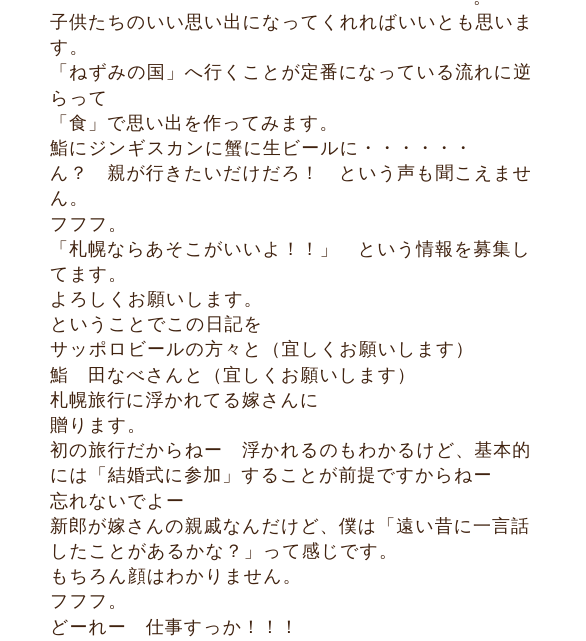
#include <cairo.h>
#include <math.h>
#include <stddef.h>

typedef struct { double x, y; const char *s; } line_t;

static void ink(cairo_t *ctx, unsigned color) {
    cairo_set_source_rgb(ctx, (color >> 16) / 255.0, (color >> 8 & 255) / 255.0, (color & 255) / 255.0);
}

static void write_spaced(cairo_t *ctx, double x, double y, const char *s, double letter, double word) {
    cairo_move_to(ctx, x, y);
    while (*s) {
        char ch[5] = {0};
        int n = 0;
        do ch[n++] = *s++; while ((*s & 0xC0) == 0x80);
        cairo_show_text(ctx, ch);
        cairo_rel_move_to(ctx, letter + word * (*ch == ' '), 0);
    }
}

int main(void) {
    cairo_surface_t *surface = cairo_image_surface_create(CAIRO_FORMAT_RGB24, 586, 641);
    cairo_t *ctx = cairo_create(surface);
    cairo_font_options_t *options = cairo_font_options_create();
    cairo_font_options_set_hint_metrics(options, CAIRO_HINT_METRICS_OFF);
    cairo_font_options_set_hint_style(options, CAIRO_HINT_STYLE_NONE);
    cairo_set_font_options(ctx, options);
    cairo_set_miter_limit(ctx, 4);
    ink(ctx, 0xFFFFFF);
    cairo_paint(ctx);
    cairo_select_font_face(ctx, "WenQuanYi Zen Hei Medium", CAIRO_FONT_SLANT_NORMAL, CAIRO_FONT_WEIGHT_NORMAL);
    cairo_set_font_size(ctx, 18);
    ink(ctx, 0x40220F);
    {
        static const line_t items[] = {
            {473, 3, "。"},
            {50, 28, "子供たちのいい思い出になってくれればいいとも思いま"},
            {50, 53, "す。"},
            {50, 78, "「ねずみの国」へ行くことが定番になっている流れに逆"},
            {50, 104, "らって"},
            {50, 129, "「食」で思い出を作ってみます。"},
            {50, 154, "鮨にジンギスカンに蟹に生ビールに・・・・・・"},
            {50, 179, "ん？　親が行きたいだけだろ！　という声も聞こえませ"},
            {50, 204, "ん。"},
            {50, 230, "フフフ。"},
            {50, 255, "「札幌ならあそこがいいよ！！」　という情報を募集し"},
            {50, 280, "てます。"},
            {50, 305, "よろしくお願いします。"},
            {50, 330, "ということでこの日記を"},
            {50, 355, "サッポロビールの方々と（宜しくお願いします）"},
            {50, 381, "鮨　田なべさんと（宜しくお願いします）"},
            {50, 406, "札幌旅行に浮かれてる嫁さんに"},
            {50, 431, "贈ります。"},
            {50, 456, "初の旅行だからねー　浮かれるのもわかるけど、基本的"},
            {50, 481, "には「結婚式に参加」することが前提ですからねー"},
            {50, 507, "忘れないでよー"},
            {50, 532, "新郎が嫁さんの親戚なんだけど、僕は「遠い昔に一言話"},
            {50, 557, "したことがあるかな？」って感じです。"},
            {50, 582, "もちろん顔はわかりません。"},
            {50, 607, "フフフ。"},
            {50, 633, "どーれー　仕事すっか！！！"},
        };
        for (size_t i = 0; i < sizeof items / sizeof *items; i++) {
            write_spaced(ctx, items[i].x, items[i].y, items[i].s, 1, 0);
        }
    }
    cairo_surface_write_to_png(surface, "image.png");
    cairo_font_options_destroy(options);
    cairo_destroy(ctx);
    cairo_surface_destroy(surface);
    return 0;
}
